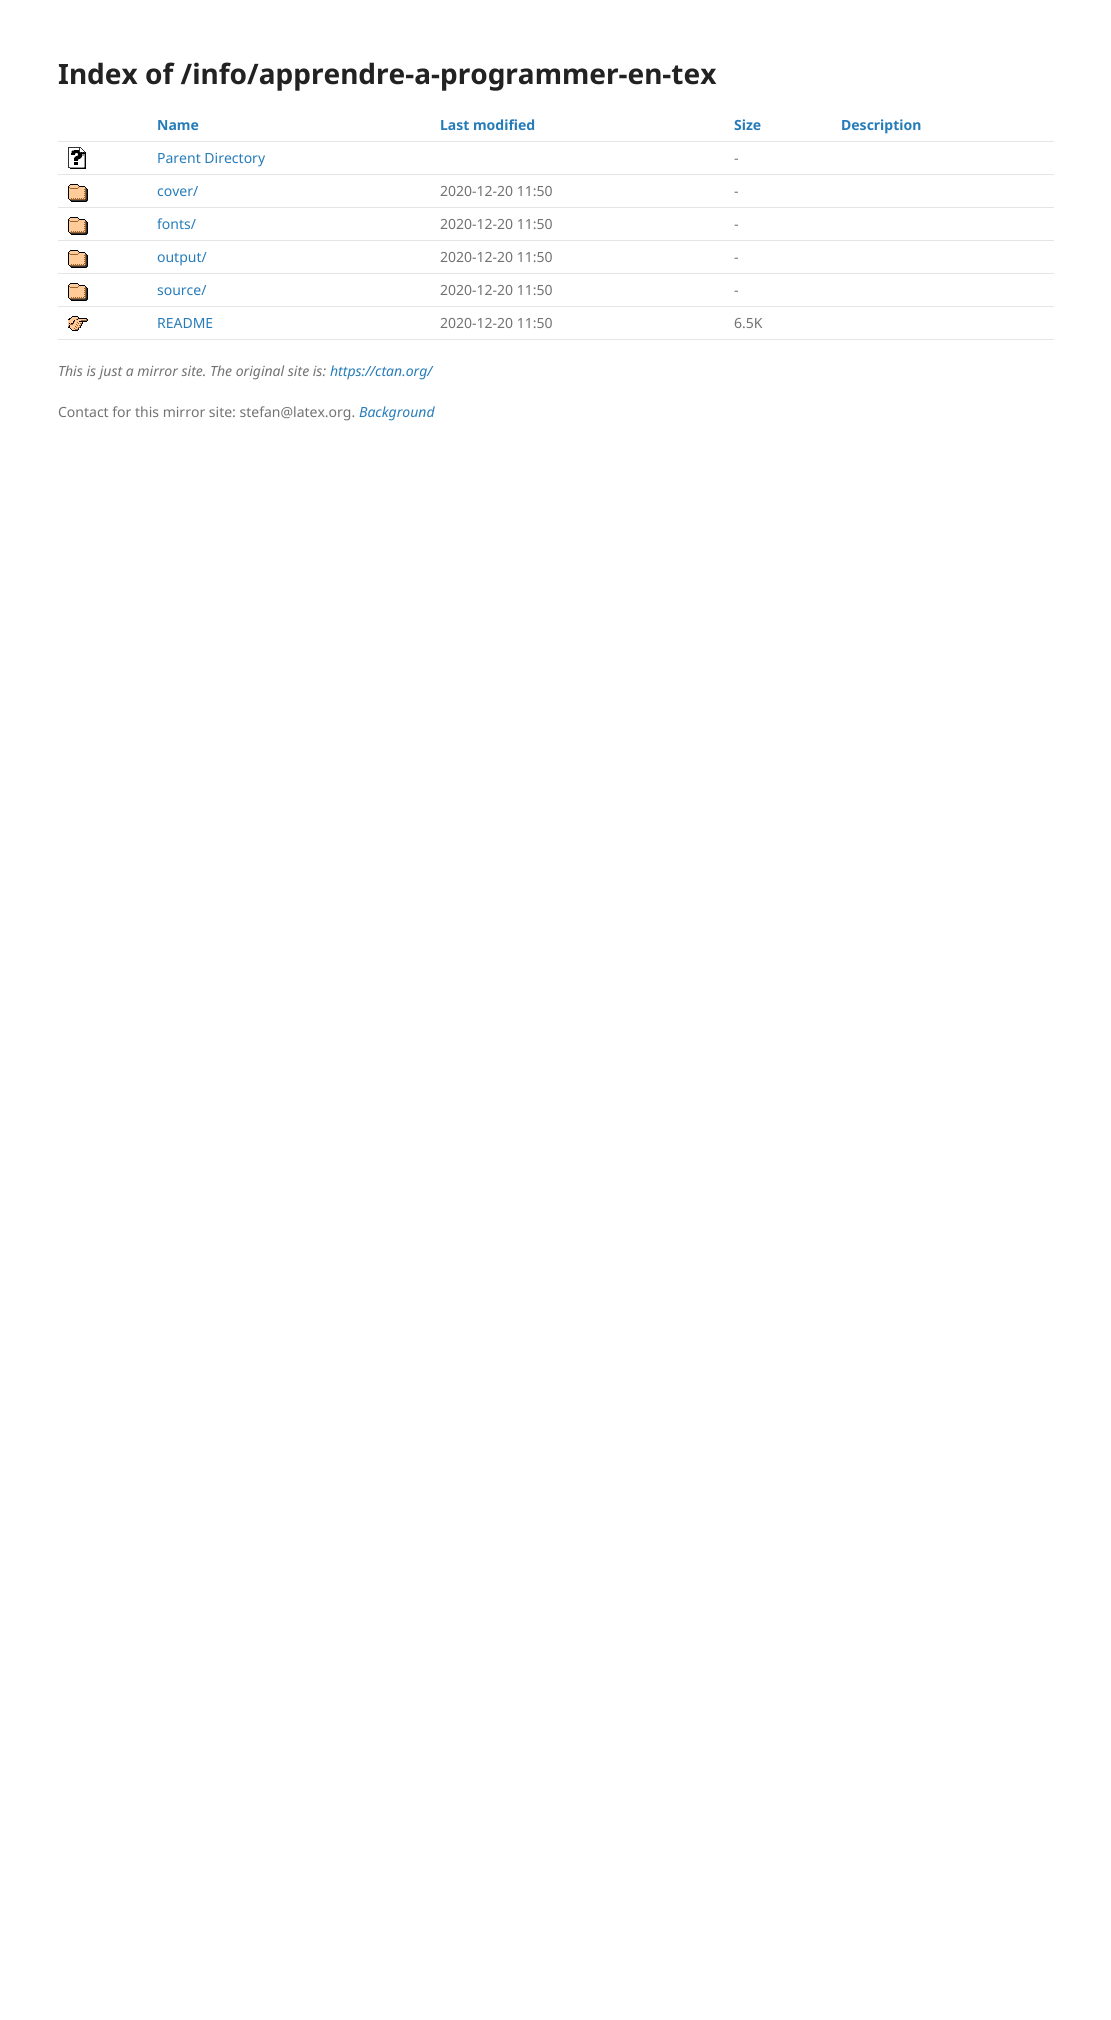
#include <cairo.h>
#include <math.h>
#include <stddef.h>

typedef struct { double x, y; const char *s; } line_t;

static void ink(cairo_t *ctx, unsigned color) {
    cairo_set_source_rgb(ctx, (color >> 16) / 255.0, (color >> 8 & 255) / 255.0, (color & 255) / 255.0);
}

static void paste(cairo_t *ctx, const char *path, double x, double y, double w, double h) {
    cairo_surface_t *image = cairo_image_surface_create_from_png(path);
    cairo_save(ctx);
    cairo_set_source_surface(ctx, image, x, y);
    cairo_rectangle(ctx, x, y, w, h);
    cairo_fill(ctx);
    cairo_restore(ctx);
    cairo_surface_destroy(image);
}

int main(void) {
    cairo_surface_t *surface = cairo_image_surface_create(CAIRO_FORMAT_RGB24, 1111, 2020);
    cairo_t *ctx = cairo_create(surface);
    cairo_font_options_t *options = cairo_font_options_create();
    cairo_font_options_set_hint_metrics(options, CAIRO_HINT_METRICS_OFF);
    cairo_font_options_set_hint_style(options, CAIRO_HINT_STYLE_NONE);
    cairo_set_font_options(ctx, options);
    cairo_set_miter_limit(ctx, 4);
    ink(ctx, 0xFFFFFF);
    cairo_paint(ctx);
    cairo_select_font_face(ctx, "Noto Sans", CAIRO_FONT_SLANT_NORMAL, CAIRO_FONT_WEIGHT_BOLD);
    cairo_set_font_size(ctx, 28);
    ink(ctx, 0x222222);
    cairo_move_to(ctx, 58, 84);
    cairo_show_text(ctx, "Index of /info/apprendre-a-programmer-en-tex");
    cairo_set_font_size(ctx, 14);
    ink(ctx, 0x267CB9);
    {
        static const line_t items[] = {
            {157, 130, "Name"},
            {440, 130, "Last modified"},
            {734, 130, "Size"},
        };
        for (size_t i = 0; i < sizeof items / sizeof *items; i++) {
            cairo_move_to(ctx, items[i].x, items[i].y);
            cairo_show_text(ctx, items[i].s);
        }
    }
    ink(ctx, 0xE5E5E5);
    cairo_rectangle(ctx, 58, 141, 996, 1);
    cairo_fill(ctx);
    ink(ctx, 0x267CB9);
    cairo_move_to(ctx, 841, 130);
    cairo_show_text(ctx, "Description");
    paste(ctx, "media/1.png", 68, 147, 18, 22);
    cairo_select_font_face(ctx, "Noto Sans", CAIRO_FONT_SLANT_NORMAL, CAIRO_FONT_WEIGHT_NORMAL);
    cairo_move_to(ctx, 157, 163);
    cairo_show_text(ctx, "Parent Directory");
    ink(ctx, 0x727272);
    cairo_move_to(ctx, 734, 163);
    cairo_show_text(ctx, "-");
    ink(ctx, 0xE5E5E5);
    cairo_rectangle(ctx, 58, 174, 996, 1);
    cairo_fill(ctx);
    paste(ctx, "media/2.png", 68, 184, 20, 18);
    ink(ctx, 0x267CB9);
    cairo_move_to(ctx, 157, 196);
    cairo_show_text(ctx, "cover/");
    ink(ctx, 0x727272);
    cairo_move_to(ctx, 440, 196);
    cairo_show_text(ctx, "2020-12-20 11:50");
    cairo_move_to(ctx, 734, 196);
    cairo_show_text(ctx, "-");
    ink(ctx, 0xE5E5E5);
    cairo_rectangle(ctx, 58, 207, 996, 1);
    cairo_fill(ctx);
    paste(ctx, "media/2.png", 68, 217, 20, 18);
    ink(ctx, 0x267CB9);
    cairo_move_to(ctx, 157, 229);
    cairo_show_text(ctx, "fonts/");
    ink(ctx, 0x727272);
    cairo_move_to(ctx, 440, 229);
    cairo_show_text(ctx, "2020-12-20 11:50");
    cairo_move_to(ctx, 734, 229);
    cairo_show_text(ctx, "-");
    ink(ctx, 0xE5E5E5);
    cairo_rectangle(ctx, 58, 240, 996, 1);
    cairo_fill(ctx);
    paste(ctx, "media/2.png", 68, 250, 20, 18);
    ink(ctx, 0x267CB9);
    cairo_move_to(ctx, 157, 262);
    cairo_show_text(ctx, "output/");
    ink(ctx, 0x727272);
    cairo_move_to(ctx, 440, 262);
    cairo_show_text(ctx, "2020-12-20 11:50");
    cairo_move_to(ctx, 734, 262);
    cairo_show_text(ctx, "-");
    ink(ctx, 0xE5E5E5);
    cairo_rectangle(ctx, 58, 273, 996, 1);
    cairo_fill(ctx);
    paste(ctx, "media/2.png", 68, 283, 20, 18);
    ink(ctx, 0x267CB9);
    cairo_move_to(ctx, 157, 295);
    cairo_show_text(ctx, "source/");
    ink(ctx, 0x727272);
    cairo_move_to(ctx, 440, 295);
    cairo_show_text(ctx, "2020-12-20 11:50");
    cairo_move_to(ctx, 734, 295);
    cairo_show_text(ctx, "-");
    ink(ctx, 0xE5E5E5);
    cairo_rectangle(ctx, 58, 306, 996, 1);
    cairo_fill(ctx);
    paste(ctx, "media/3.png", 68, 316, 20, 15);
    ink(ctx, 0x267CB9);
    cairo_move_to(ctx, 157, 328);
    cairo_show_text(ctx, "README");
    ink(ctx, 0x727272);
    cairo_move_to(ctx, 440, 328);
    cairo_show_text(ctx, "2020-12-20 11:50");
    cairo_move_to(ctx, 734, 328);
    cairo_show_text(ctx, "6.5K");
    ink(ctx, 0xE5E5E5);
    cairo_rectangle(ctx, 58, 339, 996, 1);
    cairo_fill(ctx);
    cairo_select_font_face(ctx, "Noto Sans", CAIRO_FONT_SLANT_ITALIC, CAIRO_FONT_WEIGHT_NORMAL);
    ink(ctx, 0x727272);
    cairo_move_to(ctx, 58, 376);
    cairo_show_text(ctx, "This is just a mirror site. The original site is:");
    ink(ctx, 0x267CB9);
    cairo_move_to(ctx, 330, 376);
    cairo_show_text(ctx, "https://ctan.org/");
    cairo_select_font_face(ctx, "Noto Sans", CAIRO_FONT_SLANT_NORMAL, CAIRO_FONT_WEIGHT_NORMAL);
    ink(ctx, 0x727272);
    cairo_move_to(ctx, 58, 417);
    cairo_show_text(ctx, "Contact for this mirror site: stefan@latex.org.");
    cairo_select_font_face(ctx, "Noto Sans", CAIRO_FONT_SLANT_ITALIC, CAIRO_FONT_WEIGHT_NORMAL);
    ink(ctx, 0x267CB9);
    cairo_move_to(ctx, 359, 417);
    cairo_show_text(ctx, "Background");
    cairo_surface_write_to_png(surface, "image.png");
    cairo_font_options_destroy(options);
    cairo_destroy(ctx);
    cairo_surface_destroy(surface);
    return 0;
}
